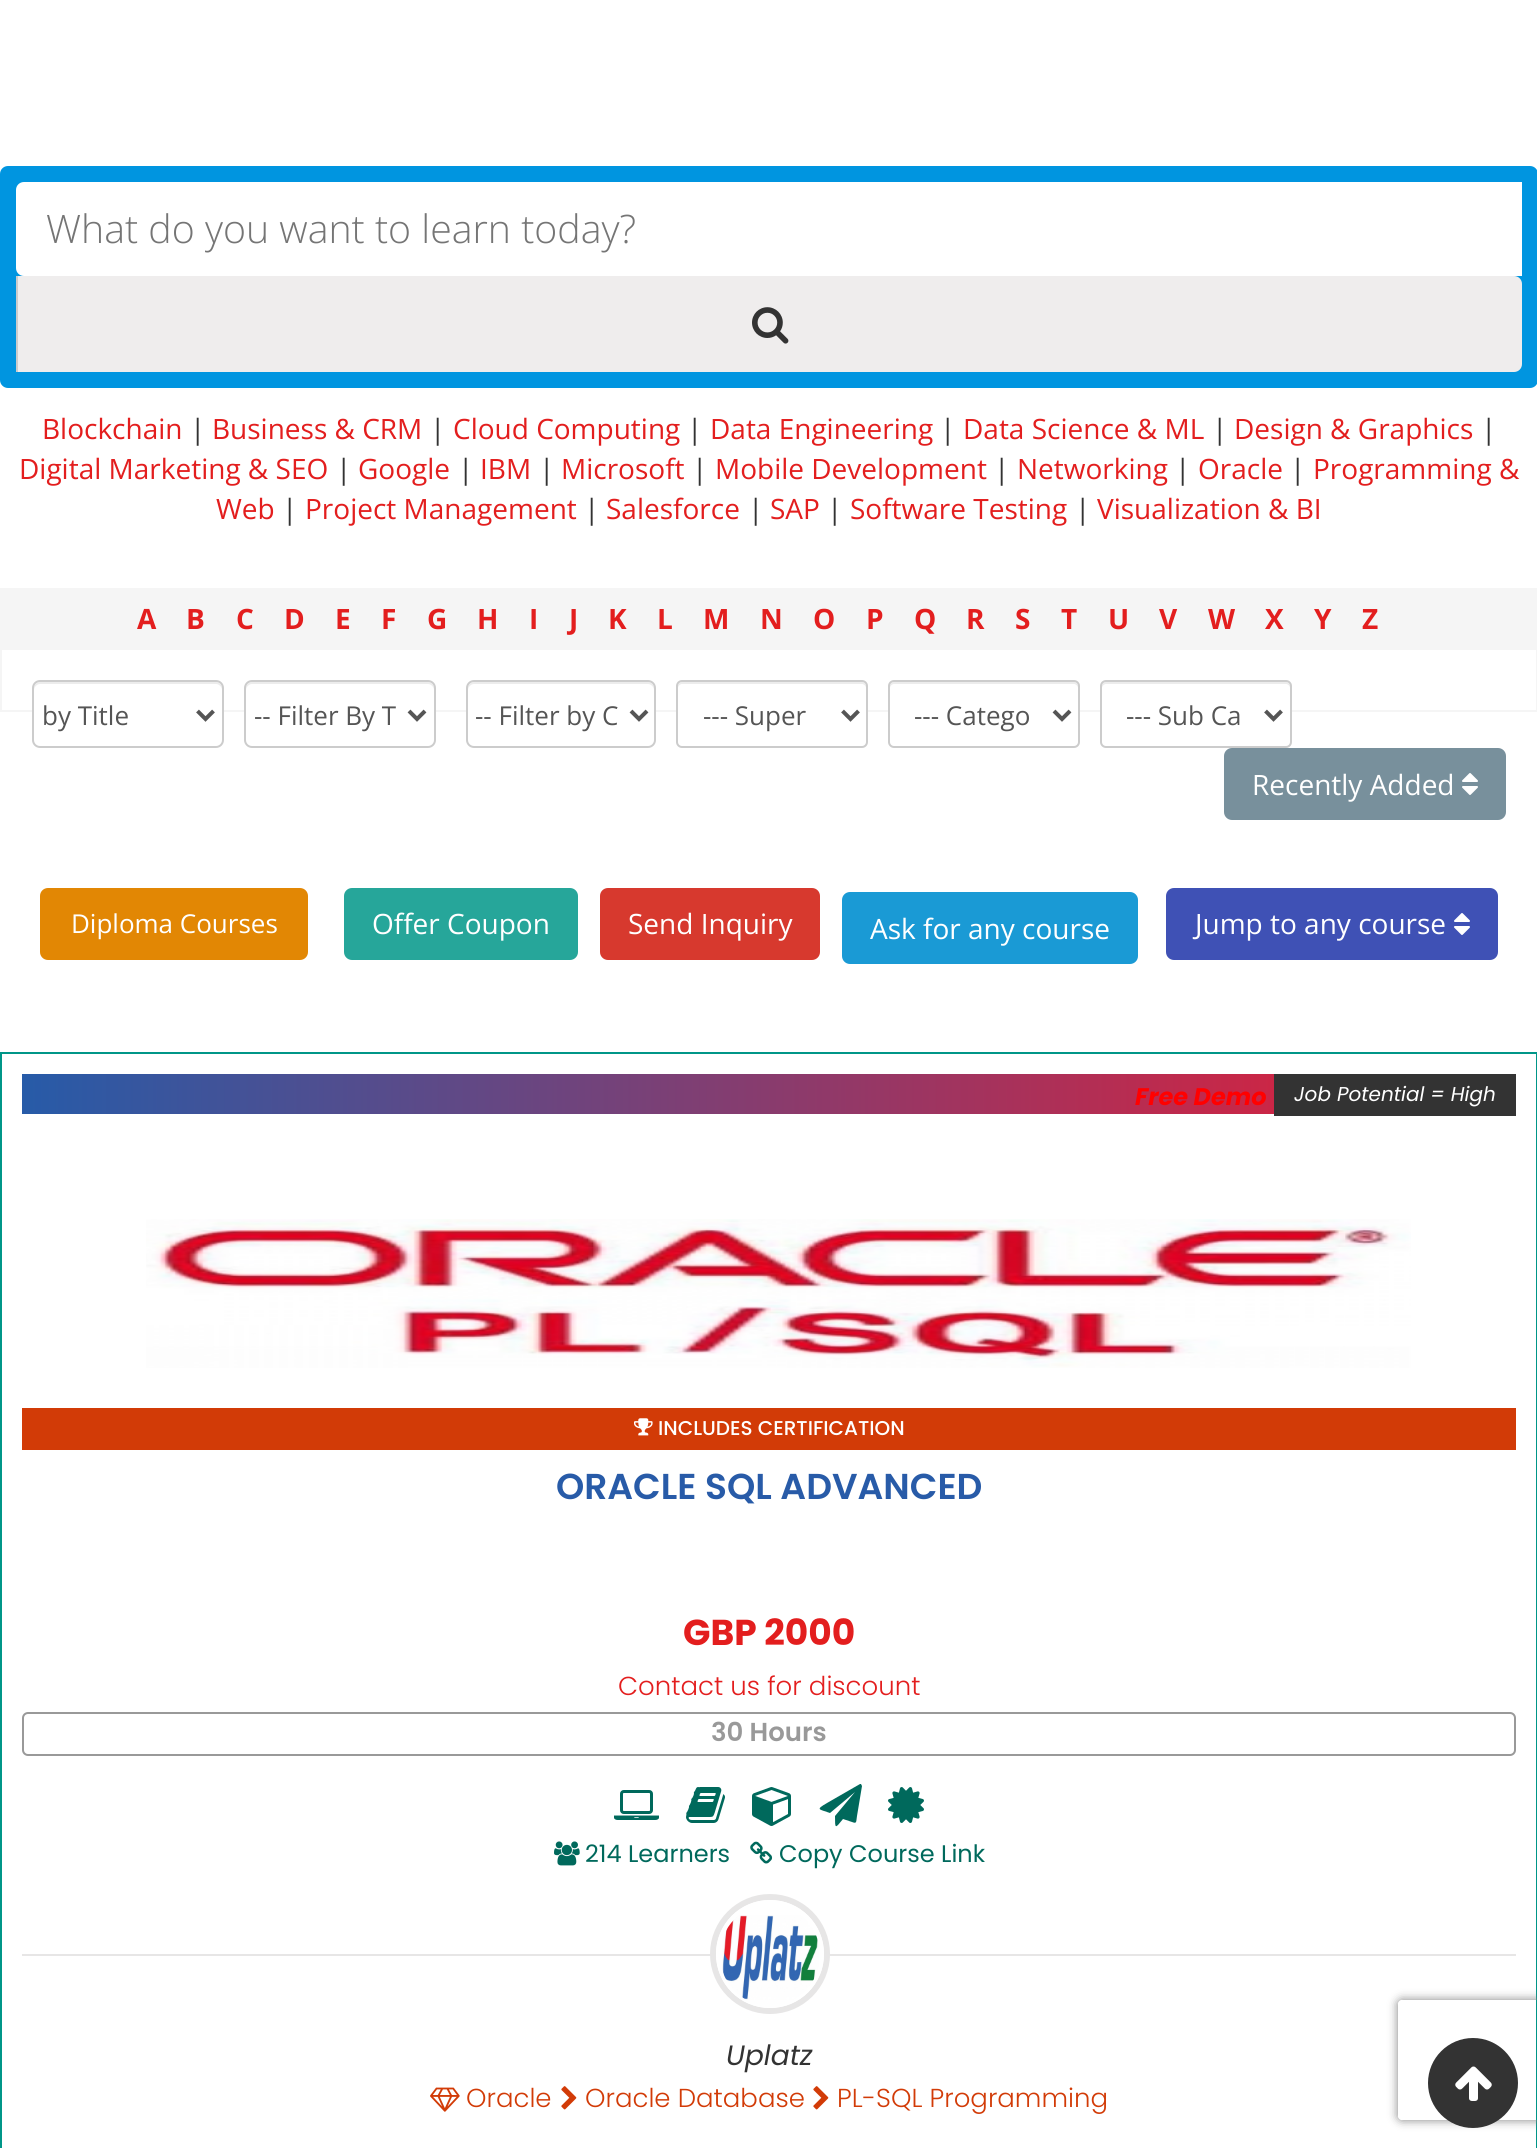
#include <cairo.h>
#include <math.h>
#include <stddef.h>

typedef struct { double x, y; const char *s; } line_t;

static void ink(cairo_t *ctx, unsigned color) {
    cairo_set_source_rgb(ctx, (color >> 16) / 255.0, (color >> 8 & 255) / 255.0, (color & 255) / 255.0);
}

static void round_path(cairo_t *ctx, double x, double y, double w, double h, double r) {
    cairo_new_sub_path(ctx);
    cairo_arc(ctx, x + w - r, y + h - r, r, 0, M_PI / 2);
    cairo_arc(ctx, x + r, y + h - r, r, M_PI / 2, M_PI);
    cairo_arc(ctx, x + r, y + r, r, M_PI, 1.5 * M_PI);
    cairo_arc(ctx, x + w - r, y + r, r, 1.5 * M_PI, 2 * M_PI);
    cairo_close_path(ctx);
}

static void blur_box(cairo_t *ctx, double x, double y, double w, double h, double r, double blur, double alpha) {
    cairo_push_group_with_content(ctx, CAIRO_CONTENT_ALPHA);
    cairo_set_operator(ctx, CAIRO_OPERATOR_SOURCE);
    for (int i = 15; i >= -15 && fmin(w, h) + blur * i / 3 > 0; i -= 2) {
        double e = blur * i / 6;
        cairo_set_source_rgba(ctx, 0, 0, 0, alpha * erfc((i - 1) / 8.5) / 2);
        round_path(ctx, x - e, y - e, w + 2 * e, h + 2 * e, fmax(0, fmin(r + e + blur * .6, fmin(w, h) / 2 + e)));
        cairo_fill(ctx);
    }
    cairo_pattern_t *soft = cairo_pop_group(ctx);
    cairo_mask(ctx, soft);
    cairo_pattern_destroy(soft);
}

static void paste(cairo_t *ctx, const char *path, double x, double y, double w, double h) {
    cairo_surface_t *image = cairo_image_surface_create_from_png(path);
    cairo_save(ctx);
    cairo_set_source_surface(ctx, image, x, y);
    cairo_rectangle(ctx, x, y, w, h);
    cairo_fill(ctx);
    cairo_restore(ctx);
    cairo_surface_destroy(image);
}

int main(void) {
    cairo_surface_t *surface = cairo_image_surface_create(CAIRO_FORMAT_RGB24, 1537, 2148);
    cairo_t *ctx = cairo_create(surface);
    cairo_font_options_t *options = cairo_font_options_create();
    cairo_font_options_set_hint_metrics(options, CAIRO_HINT_METRICS_OFF);
    cairo_font_options_set_hint_style(options, CAIRO_HINT_STYLE_NONE);
    cairo_set_font_options(ctx, options);
    cairo_set_miter_limit(ctx, 4);
    cairo_pattern_t *gradient;
    ink(ctx, 0xFFFFFF);
    cairo_paint(ctx);
    ink(ctx, 0x0095E0);
    round_path(ctx, 0, 166, 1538, 222, 8);
    cairo_fill(ctx);
    ink(ctx, 0xFFFFFF);
    cairo_new_path(ctx);
    cairo_move_to(ctx, 24, 182);
    cairo_line_to(ctx, 1522, 182);
    cairo_line_to(ctx, 1522, 276);
    cairo_line_to(ctx, 24, 276);
    cairo_curve_to(ctx, 19.5, 276, 16, 272.5, 16, 268);
    cairo_line_to(ctx, 16, 190);
    cairo_curve_to(ctx, 16, 185.5, 19.5, 182, 24, 182);
    cairo_close_path(ctx);
    cairo_fill(ctx);
    cairo_select_font_face(ctx, "Open Sans Light", CAIRO_FONT_SLANT_NORMAL, CAIRO_FONT_WEIGHT_NORMAL);
    cairo_set_font_size(ctx, 39.25);
    ink(ctx, 0x757575);
    cairo_move_to(ctx, 46, 243);
    cairo_show_text(ctx, "What do you want to learn today?");
    ink(ctx, 0xEFEDED);
    cairo_new_path(ctx);
    cairo_move_to(ctx, 16, 276);
    cairo_line_to(ctx, 1514, 276);
    cairo_curve_to(ctx, 1518.5, 276, 1522, 279.5, 1522, 284);
    cairo_line_to(ctx, 1522, 364);
    cairo_curve_to(ctx, 1522, 368.5, 1518.5, 372, 1514, 372);
    cairo_line_to(ctx, 16, 372);
    cairo_close_path(ctx);
    cairo_fill(ctx);
    ink(ctx, 0xCCCCCC);
    cairo_rectangle(ctx, 16, 276, 2, 96);
    cairo_fill(ctx);
    paste(ctx, "media/1.png", 752, 307, 37, 37);
    cairo_select_font_face(ctx, "Open Sans", CAIRO_FONT_SLANT_NORMAL, CAIRO_FONT_WEIGHT_NORMAL);
    cairo_set_font_size(ctx, 28);
    ink(ctx, 0xE31E1E);
    cairo_move_to(ctx, 42, 439);
    cairo_show_text(ctx, "Blockchain");
    ink(ctx, 0x333333);
    cairo_move_to(ctx, 190, 439);
    cairo_show_text(ctx, "|");
    ink(ctx, 0xE31E1E);
    cairo_move_to(ctx, 212, 439);
    cairo_show_text(ctx, "Business & CRM");
    ink(ctx, 0x333333);
    cairo_move_to(ctx, 430, 439);
    cairo_show_text(ctx, "|");
    ink(ctx, 0xE31E1E);
    cairo_move_to(ctx, 453, 439);
    cairo_show_text(ctx, "Cloud Computing");
    ink(ctx, 0x333333);
    cairo_move_to(ctx, 687, 439);
    cairo_show_text(ctx, "|");
    ink(ctx, 0xE31E1E);
    cairo_move_to(ctx, 710, 439);
    cairo_show_text(ctx, "Data Engineering");
    ink(ctx, 0x333333);
    cairo_move_to(ctx, 940, 439);
    cairo_show_text(ctx, "|");
    ink(ctx, 0xE31E1E);
    cairo_move_to(ctx, 963, 439);
    cairo_show_text(ctx, "Data Science & ML");
    ink(ctx, 0x333333);
    cairo_move_to(ctx, 1212, 439);
    cairo_show_text(ctx, "|");
    ink(ctx, 0xE31E1E);
    cairo_move_to(ctx, 1234, 439);
    cairo_show_text(ctx, "Design & Graphics");
    ink(ctx, 0x333333);
    cairo_move_to(ctx, 1481, 439);
    cairo_show_text(ctx, "|");
    ink(ctx, 0xE31E1E);
    cairo_move_to(ctx, 19, 479);
    cairo_show_text(ctx, "Digital Marketing & SEO");
    ink(ctx, 0x333333);
    cairo_move_to(ctx, 336, 479);
    cairo_show_text(ctx, "|");
    ink(ctx, 0xE31E1E);
    cairo_move_to(ctx, 358, 479);
    cairo_show_text(ctx, "Google");
    ink(ctx, 0x333333);
    cairo_move_to(ctx, 458, 479);
    cairo_show_text(ctx, "|");
    ink(ctx, 0xE31E1E);
    cairo_move_to(ctx, 480, 479);
    cairo_show_text(ctx, "IBM");
    ink(ctx, 0x333333);
    cairo_move_to(ctx, 539, 479);
    cairo_show_text(ctx, "|");
    ink(ctx, 0xE31E1E);
    cairo_move_to(ctx, 561, 479);
    cairo_show_text(ctx, "Microsoft");
    ink(ctx, 0x333333);
    cairo_move_to(ctx, 692, 479);
    cairo_show_text(ctx, "|");
    ink(ctx, 0xE31E1E);
    cairo_move_to(ctx, 715, 479);
    cairo_show_text(ctx, "Mobile Development");
    ink(ctx, 0x333333);
    cairo_move_to(ctx, 994, 479);
    cairo_show_text(ctx, "|");
    ink(ctx, 0xE31E1E);
    cairo_move_to(ctx, 1017, 479);
    cairo_show_text(ctx, "Networking");
    ink(ctx, 0x333333);
    cairo_move_to(ctx, 1175, 479);
    cairo_show_text(ctx, "|");
    ink(ctx, 0xE31E1E);
    cairo_move_to(ctx, 1198, 479);
    cairo_show_text(ctx, "Oracle");
    ink(ctx, 0x333333);
    cairo_move_to(ctx, 1290, 479);
    cairo_show_text(ctx, "|");
    ink(ctx, 0xE31E1E);
    cairo_move_to(ctx, 1313, 479);
    cairo_show_text(ctx, "Programming &");
    cairo_move_to(ctx, 216, 519);
    cairo_show_text(ctx, "Web");
    ink(ctx, 0x333333);
    cairo_move_to(ctx, 282, 519);
    cairo_show_text(ctx, "|");
    ink(ctx, 0xE31E1E);
    cairo_move_to(ctx, 305, 519);
    cairo_show_text(ctx, "Project Management");
    ink(ctx, 0x333333);
    cairo_move_to(ctx, 584, 519);
    cairo_show_text(ctx, "|");
    ink(ctx, 0xE31E1E);
    cairo_move_to(ctx, 606, 519);
    cairo_show_text(ctx, "Salesforce");
    ink(ctx, 0x333333);
    cairo_move_to(ctx, 748, 519);
    cairo_show_text(ctx, "|");
    ink(ctx, 0xE31E1E);
    cairo_move_to(ctx, 770, 519);
    cairo_show_text(ctx, "SAP");
    ink(ctx, 0x333333);
    cairo_move_to(ctx, 827, 519);
    cairo_show_text(ctx, "|");
    ink(ctx, 0xE31E1E);
    cairo_move_to(ctx, 850, 519);
    cairo_show_text(ctx, "Software Testing");
    ink(ctx, 0x333333);
    cairo_move_to(ctx, 1075, 519);
    cairo_show_text(ctx, "|");
    ink(ctx, 0xE31E1E);
    cairo_move_to(ctx, 1097, 519);
    cairo_show_text(ctx, "Visualization & BI");
    ink(ctx, 0xF5F5F5);
    cairo_rectangle(ctx, 0, 588, 1537, 60);
    cairo_fill(ctx);
    cairo_select_font_face(ctx, "Open Sans", CAIRO_FONT_SLANT_NORMAL, CAIRO_FONT_WEIGHT_BOLD);
    ink(ctx, 0xE31E1E);
    {
        static const line_t items[] = {
            {137, 629, "A"},
            {186, 629, "B"},
            {236, 629, "C"},
            {284, 629, "D"},
            {335, 629, "E"},
            {381, 629, "F"},
            {427, 629, "G"},
            {477, 629, "H"},
            {529, 629, "I"},
            {569, 629, "J"},
            {608, 629, "K"},
            {657, 629, "L"},
            {703, 629, "M"},
            {760, 629, "N"},
            {813, 629, "O"},
            {866, 629, "P"},
            {914, 629, "Q"},
            {966, 629, "R"},
            {1015, 629, "S"},
            {1061, 629, "T"},
            {1108, 629, "U"},
            {1159, 629, "V"},
            {1208, 629, "W"},
            {1265, 629, "X"},
            {1314, 629, "Y"},
            {1362, 629, "Z"},
        };
        for (size_t i = 0; i < sizeof items / sizeof *items; i++) {
            cairo_move_to(ctx, items[i].x, items[i].y);
            cairo_show_text(ctx, items[i].s);
        }
    }
    cairo_rectangle(ctx, 1, 649, 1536, 62);
    ink(ctx, 0xF5F5F5);
    cairo_stroke(ctx);
    ink(ctx, 0xFFFFFF);
    round_path(ctx, 32, 680, 192, 68, 8);
    cairo_fill(ctx);
    ink(ctx, 0xECECEC);
    cairo_new_path(ctx);
    cairo_move_to(ctx, 40, 684);
    cairo_line_to(ctx, 216, 684);
    cairo_curve_to(ctx, 219, 684, 222, 687, 222, 690);
    cairo_line_to(ctx, 222, 688);
    cairo_curve_to(ctx, 222, 685, 219, 682, 216, 682);
    cairo_line_to(ctx, 40, 682);
    cairo_curve_to(ctx, 37, 682, 34, 685, 34, 688);
    cairo_line_to(ctx, 34, 690);
    cairo_curve_to(ctx, 34, 687, 37, 684, 40, 684);
    cairo_close_path(ctx);
    cairo_fill(ctx);
    round_path(ctx, 33, 681, 190, 66, 7);
    ink(ctx, 0xCCCCCC);
    cairo_stroke(ctx);
    cairo_new_path(ctx);
    cairo_move_to(ctx, 197.5, 711);
    cairo_line_to(ctx, 205.5, 719);
    cairo_line_to(ctx, 213.5, 711);
    ink(ctx, 0x555555);
    cairo_set_line_width(ctx, 4);
    cairo_stroke(ctx);
    cairo_select_font_face(ctx, "Open Sans", CAIRO_FONT_SLANT_NORMAL, CAIRO_FONT_WEIGHT_NORMAL);
    cairo_set_font_size(ctx, 26);
    cairo_move_to(ctx, 42, 725);
    cairo_show_text(ctx, "by Title");
    ink(ctx, 0xFFFFFF);
    round_path(ctx, 244, 680, 192, 68, 8);
    cairo_fill(ctx);
    ink(ctx, 0xECECEC);
    cairo_new_path(ctx);
    cairo_move_to(ctx, 252, 684);
    cairo_line_to(ctx, 428, 684);
    cairo_curve_to(ctx, 431, 684, 434, 687, 434, 690);
    cairo_line_to(ctx, 434, 688);
    cairo_curve_to(ctx, 434, 685, 431, 682, 428, 682);
    cairo_line_to(ctx, 252, 682);
    cairo_curve_to(ctx, 249, 682, 246, 685, 246, 688);
    cairo_line_to(ctx, 246, 690);
    cairo_curve_to(ctx, 246, 687, 249, 684, 252, 684);
    cairo_close_path(ctx);
    cairo_fill(ctx);
    round_path(ctx, 245, 681, 190, 66, 7);
    ink(ctx, 0xCCCCCC);
    cairo_set_line_width(ctx, 2);
    cairo_stroke(ctx);
    cairo_new_path(ctx);
    cairo_move_to(ctx, 409, 711);
    cairo_line_to(ctx, 417, 719);
    cairo_line_to(ctx, 425, 711);
    ink(ctx, 0x555555);
    cairo_set_line_width(ctx, 4);
    cairo_stroke(ctx);
    cairo_move_to(ctx, 254, 725);
    cairo_show_text(ctx, "-- Filter By T");
    ink(ctx, 0xFFFFFF);
    round_path(ctx, 466, 680, 190, 68, 8);
    cairo_fill(ctx);
    ink(ctx, 0xECECEC);
    cairo_new_path(ctx);
    cairo_move_to(ctx, 474, 684);
    cairo_line_to(ctx, 648, 684);
    cairo_curve_to(ctx, 651, 684, 654, 687, 654, 690);
    cairo_line_to(ctx, 654, 688);
    cairo_curve_to(ctx, 654, 685, 651, 682, 648, 682);
    cairo_line_to(ctx, 474, 682);
    cairo_curve_to(ctx, 471, 682, 468, 685, 468, 688);
    cairo_line_to(ctx, 468, 690);
    cairo_curve_to(ctx, 468, 687, 471, 684, 474, 684);
    cairo_close_path(ctx);
    cairo_fill(ctx);
    round_path(ctx, 467, 681, 188, 66, 7);
    ink(ctx, 0xCCCCCC);
    cairo_set_line_width(ctx, 2);
    cairo_stroke(ctx);
    cairo_new_path(ctx);
    cairo_move_to(ctx, 631, 711);
    cairo_line_to(ctx, 639, 719);
    cairo_line_to(ctx, 647, 711);
    ink(ctx, 0x555555);
    cairo_set_line_width(ctx, 4);
    cairo_stroke(ctx);
    cairo_move_to(ctx, 475, 725);
    cairo_show_text(ctx, "-- Filter by C");
    ink(ctx, 0xFFFFFF);
    round_path(ctx, 676, 680, 192, 68, 6);
    cairo_fill(ctx);
    ink(ctx, 0xECECEC);
    cairo_new_path(ctx);
    cairo_move_to(ctx, 682, 684);
    cairo_line_to(ctx, 862, 684);
    cairo_curve_to(ctx, 864, 684, 866, 686, 866, 688);
    cairo_line_to(ctx, 866, 686);
    cairo_curve_to(ctx, 866, 684, 864, 682, 862, 682);
    cairo_line_to(ctx, 682, 682);
    cairo_curve_to(ctx, 680, 682, 678, 684, 678, 686);
    cairo_line_to(ctx, 678, 688);
    cairo_curve_to(ctx, 678, 686, 680, 684, 682, 684);
    cairo_close_path(ctx);
    cairo_fill(ctx);
    round_path(ctx, 677, 681, 190, 66, 5);
    ink(ctx, 0xCCCCCC);
    cairo_set_line_width(ctx, 2);
    cairo_stroke(ctx);
    cairo_new_path(ctx);
    cairo_move_to(ctx, 842.5, 711);
    cairo_line_to(ctx, 850.5, 719);
    cairo_line_to(ctx, 858.5, 711);
    ink(ctx, 0x555555);
    cairo_set_line_width(ctx, 4);
    cairo_stroke(ctx);
    cairo_move_to(ctx, 703, 725);
    cairo_show_text(ctx, "--- Super");
    ink(ctx, 0xFFFFFF);
    round_path(ctx, 888, 680, 192, 68, 6);
    cairo_fill(ctx);
    ink(ctx, 0xECECEC);
    cairo_new_path(ctx);
    cairo_move_to(ctx, 894, 684);
    cairo_line_to(ctx, 1074, 684);
    cairo_curve_to(ctx, 1076, 684, 1078, 686, 1078, 688);
    cairo_line_to(ctx, 1078, 686);
    cairo_curve_to(ctx, 1078, 684, 1076, 682, 1074, 682);
    cairo_line_to(ctx, 894, 682);
    cairo_curve_to(ctx, 892, 682, 890, 684, 890, 686);
    cairo_line_to(ctx, 890, 688);
    cairo_curve_to(ctx, 890, 686, 892, 684, 894, 684);
    cairo_close_path(ctx);
    cairo_fill(ctx);
    round_path(ctx, 889, 681, 190, 66, 5);
    ink(ctx, 0xCCCCCC);
    cairo_set_line_width(ctx, 2);
    cairo_stroke(ctx);
    cairo_new_path(ctx);
    cairo_move_to(ctx, 1054, 711);
    cairo_line_to(ctx, 1062, 719);
    cairo_line_to(ctx, 1070, 711);
    ink(ctx, 0x555555);
    cairo_set_line_width(ctx, 4);
    cairo_stroke(ctx);
    cairo_move_to(ctx, 914, 725);
    cairo_show_text(ctx, "--- Catego");
    ink(ctx, 0xFFFFFF);
    round_path(ctx, 1100, 680, 192, 68, 6);
    cairo_fill(ctx);
    ink(ctx, 0xECECEC);
    cairo_new_path(ctx);
    cairo_move_to(ctx, 1106, 684);
    cairo_line_to(ctx, 1286, 684);
    cairo_curve_to(ctx, 1288, 684, 1290, 686, 1290, 688);
    cairo_line_to(ctx, 1290, 686);
    cairo_curve_to(ctx, 1290, 684, 1288, 682, 1286, 682);
    cairo_line_to(ctx, 1106, 682);
    cairo_curve_to(ctx, 1104, 682, 1102, 684, 1102, 686);
    cairo_line_to(ctx, 1102, 688);
    cairo_curve_to(ctx, 1102, 686, 1104, 684, 1106, 684);
    cairo_close_path(ctx);
    cairo_fill(ctx);
    round_path(ctx, 1101, 681, 190, 66, 5);
    ink(ctx, 0xCCCCCC);
    cairo_set_line_width(ctx, 2);
    cairo_stroke(ctx);
    cairo_new_path(ctx);
    cairo_move_to(ctx, 1265.5, 711);
    cairo_line_to(ctx, 1273.5, 719);
    cairo_line_to(ctx, 1281.5, 711);
    ink(ctx, 0x555555);
    cairo_set_line_width(ctx, 4);
    cairo_stroke(ctx);
    cairo_move_to(ctx, 1126, 725);
    cairo_show_text(ctx, "--- Sub Ca");
    ink(ctx, 0x78909C);
    round_path(ctx, 1224, 748, 282, 72, 8);
    cairo_fill(ctx);
    cairo_set_font_size(ctx, 28);
    ink(ctx, 0xFFFFFF);
    cairo_move_to(ctx, 1252, 795);
    cairo_show_text(ctx, "Recently Added");
    paste(ctx, "media/2.png", 1462, 773, 16, 22);
    ink(ctx, 0xE28704);
    round_path(ctx, 41, 889, 266, 70, 7);
    cairo_fill_preserve(ctx);
    cairo_set_line_width(ctx, 2);
    cairo_stroke(ctx);
    cairo_set_font_size(ctx, 26);
    ink(ctx, 0xFFFFFF);
    cairo_move_to(ctx, 71, 933);
    cairo_show_text(ctx, "Diploma Courses");
    ink(ctx, 0x26A69A);
    round_path(ctx, 344, 888, 234, 72, 8);
    cairo_fill(ctx);
    cairo_set_font_size(ctx, 28);
    ink(ctx, 0xFFFFFF);
    cairo_move_to(ctx, 372, 934);
    cairo_show_text(ctx, "Offer Coupon");
    ink(ctx, 0xD7392E);
    round_path(ctx, 600, 888, 220, 72, 8);
    cairo_fill(ctx);
    ink(ctx, 0xFFFFFF);
    cairo_move_to(ctx, 628, 934);
    cairo_show_text(ctx, "Send Inquiry");
    ink(ctx, 0x1A9AD5);
    round_path(ctx, 842, 892, 296, 72, 8);
    cairo_fill(ctx);
    ink(ctx, 0xFFFFFF);
    cairo_move_to(ctx, 870, 939);
    cairo_show_text(ctx, "Ask for any course");
    ink(ctx, 0x3F51B5);
    round_path(ctx, 1166, 888, 332, 72, 8);
    cairo_fill(ctx);
    ink(ctx, 0xFFFFFF);
    cairo_move_to(ctx, 1195, 934);
    cairo_show_text(ctx, "Jump to any course");
    paste(ctx, "media/3.png", 1454, 913, 16, 22);
    cairo_rectangle(ctx, 1, 1053, 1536, 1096);
    ink(ctx, 0x009688);
    cairo_stroke(ctx);
    gradient = cairo_pattern_create_linear(22, 1094, 1516, 1094);
    cairo_pattern_add_color_stop_rgba(gradient, 0, 0.153, 0.357, 0.659, 1);
    cairo_pattern_add_color_stop_rgba(gradient, 1, 0.918, 0.11, 0.2, 1);
    cairo_set_source(ctx, gradient);
    cairo_pattern_destroy(gradient);
    cairo_rectangle(ctx, 22, 1074, 1252, 40);
    cairo_fill(ctx);
    cairo_select_font_face(ctx, "Poppins", CAIRO_FONT_SLANT_ITALIC, CAIRO_FONT_WEIGHT_BOLD);
    cairo_set_font_size(ctx, 24);
    ink(ctx, 0xFF0000);
    cairo_move_to(ctx, 1135, 1105);
    cairo_show_text(ctx, "Free Demo");
    ink(ctx, 0x333333);
    cairo_rectangle(ctx, 1274, 1074, 242, 42);
    cairo_fill(ctx);
    cairo_select_font_face(ctx, "Poppins", CAIRO_FONT_SLANT_ITALIC, CAIRO_FONT_WEIGHT_NORMAL);
    cairo_set_font_size(ctx, 20);
    ink(ctx, 0xFFFFFF);
    cairo_move_to(ctx, 1294, 1101);
    cairo_show_text(ctx, "Job Potential = High");
    paste(ctx, "media/4.png", 146, 1219, 1265, 149);
    ink(ctx, 0xD23B07);
    cairo_rectangle(ctx, 22, 1408, 1494, 42);
    cairo_fill(ctx);
    paste(ctx, "media/5.png", 634, 1418, 19, 18);
    cairo_select_font_face(ctx, "Poppins Medium", CAIRO_FONT_SLANT_NORMAL, CAIRO_FONT_WEIGHT_NORMAL);
    ink(ctx, 0xFFFFFF);
    cairo_move_to(ctx, 658, 1435);
    cairo_show_text(ctx, "INCLUDES CERTIFICATION");
    cairo_select_font_face(ctx, "Poppins SemiBold", CAIRO_FONT_SLANT_NORMAL, CAIRO_FONT_WEIGHT_NORMAL);
    cairo_set_font_size(ctx, 36);
    ink(ctx, 0x285BA8);
    cairo_move_to(ctx, 556, 1499);
    cairo_show_text(ctx, "ORACLE SQL ADVANCED");
    cairo_select_font_face(ctx, "Poppins", CAIRO_FONT_SLANT_NORMAL, CAIRO_FONT_WEIGHT_BOLD);
    ink(ctx, 0xE31E1E);
    cairo_move_to(ctx, 683, 1645);
    cairo_show_text(ctx, "GBP 2000");
    cairo_select_font_face(ctx, "Poppins Light", CAIRO_FONT_SLANT_NORMAL, CAIRO_FONT_WEIGHT_NORMAL);
    cairo_set_font_size(ctx, 26);
    cairo_move_to(ctx, 618, 1695);
    cairo_show_text(ctx, "Contact us for discount");
    round_path(ctx, 23, 1713, 1492, 42, 5);
    ink(ctx, 0x999999);
    cairo_stroke(ctx);
    cairo_select_font_face(ctx, "Poppins SemiBold", CAIRO_FONT_SLANT_NORMAL, CAIRO_FONT_WEIGHT_NORMAL);
    cairo_move_to(ctx, 711, 1741);
    cairo_show_text(ctx, "30 Hours");
    paste(ctx, "media/6.png", 614, 1790, 45, 30);
    paste(ctx, "media/7.png", 686, 1787, 39, 36);
    paste(ctx, "media/8.png", 752, 1787, 39, 39);
    ink(ctx, 0x00695C);
    cairo_new_path(ctx);
    cairo_move_to(ctx, 861, 1784);
    cairo_line_to(ctx, 862, 1786);
    cairo_line_to(ctx, 857, 1816);
    cairo_curve_to(ctx, 856, 1822, 857, 1824, 852, 1822);
    cairo_line_to(ctx, 843, 1819);
    cairo_curve_to(ctx, 835, 1829, 835, 1829, 835, 1816);
    cairo_line_to(ctx, 855, 1792);
    cairo_line_to(ctx, 830, 1813);
    cairo_curve_to(ctx, 819, 1809, 815, 1810, 827, 1803);
    cairo_line_to(ctx, 860, 1784);
    cairo_close_path(ctx);
    cairo_fill(ctx);
    paste(ctx, "media/9.png", 888, 1787, 36, 36);
    paste(ctx, "media/10.png", 554, 1841, 26, 25);
    cairo_select_font_face(ctx, "Poppins", CAIRO_FONT_SLANT_NORMAL, CAIRO_FONT_WEIGHT_NORMAL);
    cairo_set_font_size(ctx, 24);
    cairo_move_to(ctx, 585, 1862);
    cairo_show_text(ctx, "214 Learners");
    paste(ctx, "media/11.png", 750, 1841, 23, 23);
    cairo_move_to(ctx, 779, 1862);
    cairo_show_text(ctx, "Copy Course Link");
    ink(ctx, 0xE7E6E6);
    cairo_rectangle(ctx, 22, 1954, 1494, 2);
    cairo_fill(ctx);
    ink(ctx, 0xFFFFFF);
    cairo_arc(ctx, 770, 1954, 57, 0, 2 * M_PI);
    cairo_fill_preserve(ctx);
    ink(ctx, 0xE7E6E6);
    cairo_set_line_width(ctx, 6);
    cairo_stroke(ctx);
    cairo_save(ctx);
    round_path(ctx, 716, 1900, 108, 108, 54);
    cairo_clip(ctx);
    cairo_set_fill_rule(ctx, CAIRO_FILL_RULE_EVEN_ODD);
    cairo_new_path(ctx);
    cairo_move_to(ctx, 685, 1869);
    cairo_line_to(ctx, 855, 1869);
    cairo_line_to(ctx, 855, 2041);
    cairo_line_to(ctx, 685, 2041);
    cairo_close_path(ctx);
    cairo_move_to(ctx, 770, 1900);
    cairo_curve_to(ctx, 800, 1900, 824, 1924, 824, 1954);
    cairo_line_to(ctx, 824, 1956);
    cairo_curve_to(ctx, 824, 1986, 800, 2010, 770, 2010);
    cairo_curve_to(ctx, 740, 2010, 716, 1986, 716, 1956);
    cairo_line_to(ctx, 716, 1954);
    cairo_curve_to(ctx, 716, 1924, 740, 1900, 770, 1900);
    cairo_close_path(ctx);
    cairo_clip(ctx);
    ink(ctx, 0x000000);
    blur_box(ctx, 716, 1900, 108, 110, 54, 10, 0.73);
    cairo_restore(ctx);
    ink(ctx, 0xFFFFFF);
    cairo_set_fill_rule(ctx, CAIRO_FILL_RULE_EVEN_ODD);
    cairo_new_path(ctx);
    cairo_move_to(ctx, 770, 1900);
    cairo_curve_to(ctx, 740, 1900, 716, 1924, 716, 1954);
    cairo_curve_to(ctx, 716, 1984, 740, 2008, 770, 2008);
    cairo_curve_to(ctx, 800, 2008, 824, 1984, 824, 1954);
    cairo_curve_to(ctx, 824, 1924, 800, 1900, 770, 1900);
    cairo_close_path(ctx);
    cairo_move_to(ctx, 770, 1904);
    cairo_curve_to(ctx, 720, 1904, 701, 1970, 742, 1997);
    cairo_curve_to(ctx, 750, 2003, 760, 2006, 770, 2006);
    cairo_curve_to(ctx, 780, 2006, 790, 2003, 798, 1997);
    cairo_curve_to(ctx, 839, 1970, 820, 1904, 770, 1904);
    cairo_close_path(ctx);
    cairo_fill(ctx);
    paste(ctx, "media/12.png", 722, 1915, 97, 85);
    cairo_select_font_face(ctx, "Poppins", CAIRO_FONT_SLANT_ITALIC, CAIRO_FONT_WEIGHT_NORMAL);
    cairo_set_font_size(ctx, 28);
    ink(ctx, 0x333333);
    cairo_move_to(ctx, 726, 2065);
    cairo_show_text(ctx, "Uplatz");
    paste(ctx, "media/13.png", 430, 2087, 30, 25);
    cairo_select_font_face(ctx, "Poppins Light", CAIRO_FONT_SLANT_NORMAL, CAIRO_FONT_WEIGHT_NORMAL);
    cairo_set_font_size(ctx, 26);
    ink(ctx, 0xD23B07);
    cairo_move_to(ctx, 466, 2107);
    cairo_show_text(ctx, "Oracle");
    paste(ctx, "media/14.png", 561, 2086, 16, 24);
    cairo_move_to(ctx, 585, 2107);
    cairo_show_text(ctx, "Oracle Database");
    paste(ctx, "media/14.png", 813, 2086, 16, 24);
    cairo_move_to(ctx, 837, 2107);
    cairo_show_text(ctx, "PL-SQL Programming");
    cairo_save(ctx);
    cairo_new_path(ctx);
    cairo_move_to(ctx, 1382, 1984);
    cairo_line_to(ctx, 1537, 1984);
    cairo_line_to(ctx, 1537, 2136);
    cairo_line_to(ctx, 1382, 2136);
    cairo_close_path(ctx);
    cairo_move_to(ctx, 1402, 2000);
    cairo_line_to(ctx, 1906, 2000);
    cairo_curve_to(ctx, 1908, 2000, 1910, 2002, 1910, 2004);
    cairo_line_to(ctx, 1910, 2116);
    cairo_curve_to(ctx, 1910, 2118, 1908, 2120, 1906, 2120);
    cairo_line_to(ctx, 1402, 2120);
    cairo_curve_to(ctx, 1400, 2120, 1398, 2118, 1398, 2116);
    cairo_line_to(ctx, 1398, 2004);
    cairo_curve_to(ctx, 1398, 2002, 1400, 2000, 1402, 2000);
    cairo_close_path(ctx);
    cairo_clip(ctx);
    ink(ctx, 0x808080);
    blur_box(ctx, 1398, 2000, 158, 120, 4, 5, 1);
    cairo_restore(ctx);
    ink(ctx, 0x333333);
    cairo_arc(ctx, 1473, 2083, 45, 0, 2 * M_PI);
    cairo_fill(ctx);
    paste(ctx, "media/15.png", 1455, 2066, 37, 35);
    cairo_surface_write_to_png(surface, "image.png");
    cairo_font_options_destroy(options);
    cairo_destroy(ctx);
    cairo_surface_destroy(surface);
    return 0;
}
